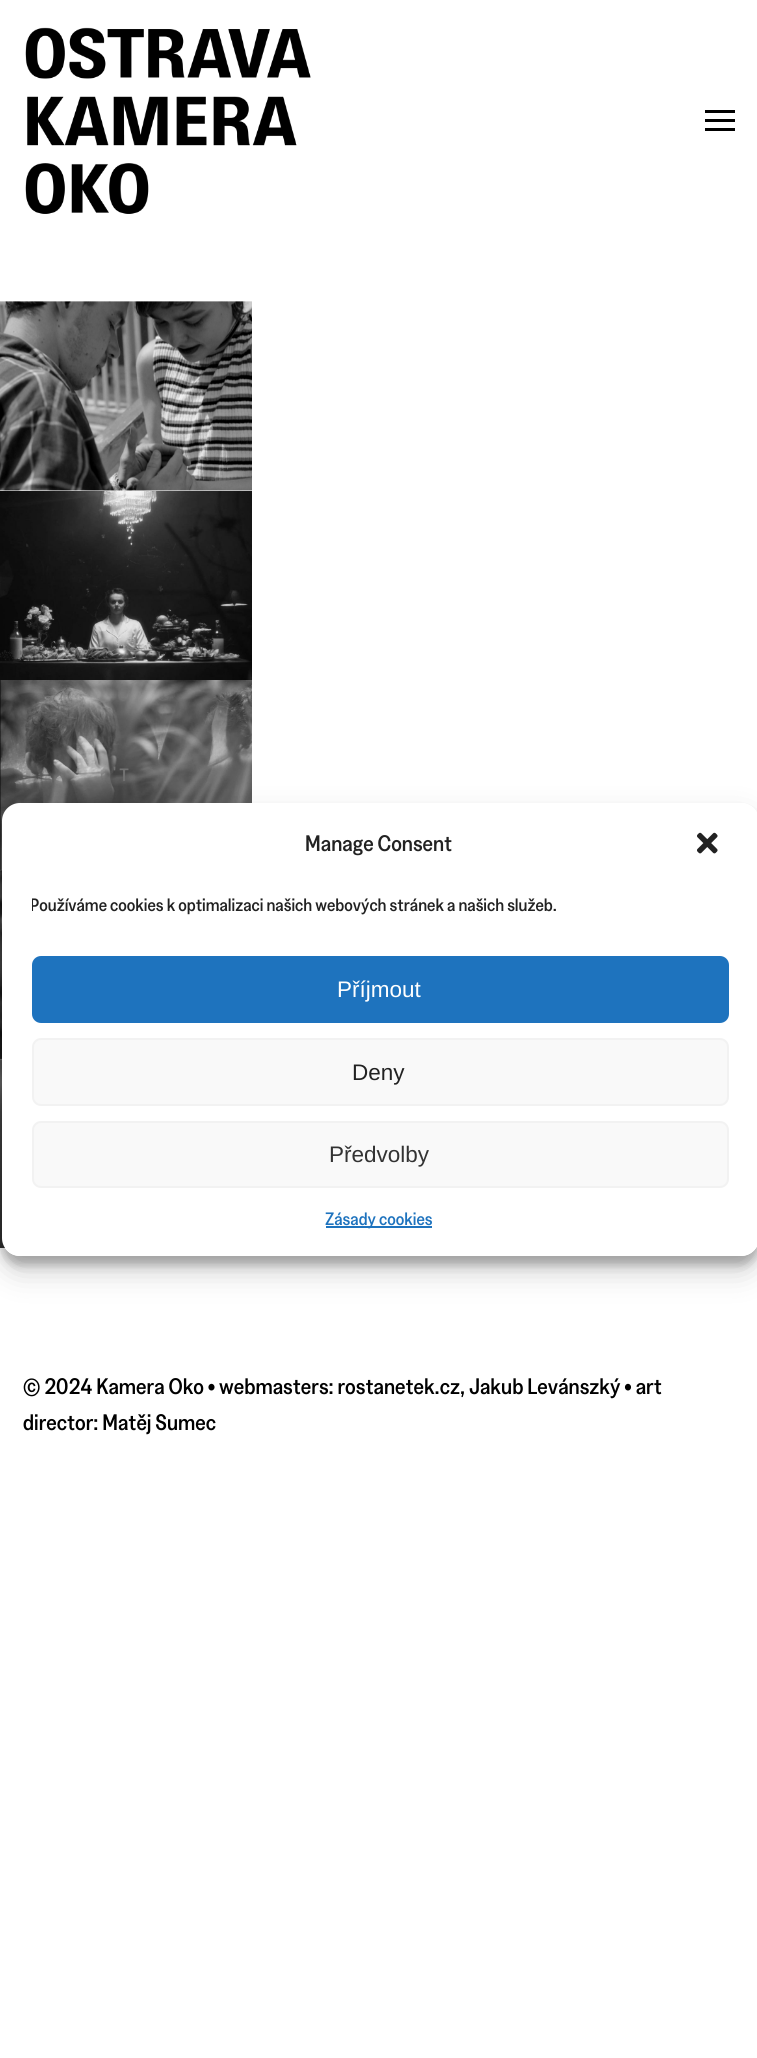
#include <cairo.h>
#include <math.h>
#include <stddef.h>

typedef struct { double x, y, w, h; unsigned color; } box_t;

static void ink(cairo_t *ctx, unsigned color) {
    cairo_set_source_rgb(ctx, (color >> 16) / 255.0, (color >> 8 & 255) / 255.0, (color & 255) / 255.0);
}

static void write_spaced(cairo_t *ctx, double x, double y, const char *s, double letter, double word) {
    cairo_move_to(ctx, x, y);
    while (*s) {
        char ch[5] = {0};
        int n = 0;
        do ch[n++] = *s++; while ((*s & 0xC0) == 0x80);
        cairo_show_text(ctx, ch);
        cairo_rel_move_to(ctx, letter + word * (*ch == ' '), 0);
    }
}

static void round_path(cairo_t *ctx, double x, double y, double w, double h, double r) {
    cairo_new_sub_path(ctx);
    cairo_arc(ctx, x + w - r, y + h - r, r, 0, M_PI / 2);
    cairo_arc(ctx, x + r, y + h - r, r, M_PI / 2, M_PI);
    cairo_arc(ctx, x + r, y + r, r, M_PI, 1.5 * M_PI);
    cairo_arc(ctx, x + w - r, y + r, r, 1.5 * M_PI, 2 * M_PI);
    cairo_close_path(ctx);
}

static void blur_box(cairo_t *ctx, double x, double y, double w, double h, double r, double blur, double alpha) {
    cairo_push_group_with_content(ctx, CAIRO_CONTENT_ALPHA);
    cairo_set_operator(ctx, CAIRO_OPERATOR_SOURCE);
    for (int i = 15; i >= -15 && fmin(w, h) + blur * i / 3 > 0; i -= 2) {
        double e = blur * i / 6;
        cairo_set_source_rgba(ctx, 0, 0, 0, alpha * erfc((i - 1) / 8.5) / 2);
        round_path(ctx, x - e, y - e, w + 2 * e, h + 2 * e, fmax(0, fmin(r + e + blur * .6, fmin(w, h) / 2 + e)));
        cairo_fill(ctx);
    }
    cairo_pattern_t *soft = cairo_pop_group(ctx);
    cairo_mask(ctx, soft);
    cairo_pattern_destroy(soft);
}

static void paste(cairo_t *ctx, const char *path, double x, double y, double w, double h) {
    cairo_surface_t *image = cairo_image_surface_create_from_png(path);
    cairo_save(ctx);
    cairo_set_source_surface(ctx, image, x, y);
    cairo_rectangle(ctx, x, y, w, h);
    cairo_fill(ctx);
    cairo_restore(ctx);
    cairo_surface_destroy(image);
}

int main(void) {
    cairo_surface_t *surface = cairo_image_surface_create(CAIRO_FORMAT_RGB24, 757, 2058);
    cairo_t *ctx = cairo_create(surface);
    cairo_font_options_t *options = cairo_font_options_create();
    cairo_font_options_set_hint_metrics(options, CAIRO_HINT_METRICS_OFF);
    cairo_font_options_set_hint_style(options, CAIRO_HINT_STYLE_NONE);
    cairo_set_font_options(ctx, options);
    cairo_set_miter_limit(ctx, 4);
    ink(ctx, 0xFFFFFF);
    cairo_paint(ctx);
    paste(ctx, "media/1.png", 25, 27, 286, 187);
    {
        static const box_t items[] = {
            {705, 110, 30, 3, 0x000000},
            {705, 119, 30, 3, 0x000000},
            {705, 128, 30, 3, 0x000000},
        };
        for (size_t i = 0; i < sizeof items / sizeof *items; i++) {
            ink(ctx, items[i].color);
            cairo_rectangle(ctx, items[i].x, items[i].y, items[i].w, items[i].h);
            cairo_fill(ctx);
        }
    }
    paste(ctx, "media/2.png", 0, 301, 252, 190);
    paste(ctx, "media/3.png", 0, 491, 252, 189);
    paste(ctx, "media/4.png", 0, 680, 252, 190);
    cairo_select_font_face(ctx, "Poppins Medium", CAIRO_FONT_SLANT_NORMAL, CAIRO_FONT_WEIGHT_NORMAL);
    cairo_set_font_size(ctx, 18);
    ink(ctx, 0x717171);
    write_spaced(ctx, 113, 781, "'T", 3, 0);
    paste(ctx, "media/5.png", 0, 870, 2, 189);
    paste(ctx, "media/6.png", 0, 1059, 5, 189);
    cairo_select_font_face(ctx, "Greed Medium", CAIRO_FONT_SLANT_NORMAL, CAIRO_FONT_WEIGHT_NORMAL);
    cairo_set_font_size(ctx, 22.5);
    ink(ctx, 0x000000);
    cairo_move_to(ctx, 23, 1394);
    cairo_show_text(ctx, "© 2024 Kamera Oko • webmasters: rostanetek.cz, Jakub Levánszký • art");
    cairo_move_to(ctx, 23, 1430);
    cairo_show_text(ctx, "director: Matěj Sumec");
    cairo_save(ctx);
    cairo_set_fill_rule(ctx, CAIRO_FILL_RULE_EVEN_ODD);
    cairo_new_path(ctx);
    cairo_move_to(ctx, 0, 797);
    cairo_line_to(ctx, 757, 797);
    cairo_line_to(ctx, 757, 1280);
    cairo_line_to(ctx, 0, 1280);
    cairo_close_path(ctx);
    cairo_move_to(ctx, 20, 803);
    cairo_line_to(ctx, 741, 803);
    cairo_curve_to(ctx, 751, 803, 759, 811, 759, 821);
    cairo_line_to(ctx, 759, 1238);
    cairo_curve_to(ctx, 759, 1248, 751, 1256, 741, 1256);
    cairo_line_to(ctx, 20, 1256);
    cairo_curve_to(ctx, 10, 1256, 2, 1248, 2, 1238);
    cairo_line_to(ctx, 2, 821);
    cairo_curve_to(ctx, 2, 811, 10, 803, 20, 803);
    cairo_close_path(ctx);
    cairo_clip(ctx);
    ink(ctx, 0x000000);
    blur_box(ctx, 2, 812, 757, 453, 18, 4.5, 0.23);
    cairo_restore(ctx);
    cairo_save(ctx);
    cairo_set_fill_rule(ctx, CAIRO_FILL_RULE_EVEN_ODD);
    cairo_new_path(ctx);
    cairo_move_to(ctx, 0, 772);
    cairo_line_to(ctx, 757, 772);
    cairo_line_to(ctx, 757, 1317);
    cairo_line_to(ctx, 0, 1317);
    cairo_close_path(ctx);
    cairo_move_to(ctx, 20, 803);
    cairo_line_to(ctx, 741, 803);
    cairo_curve_to(ctx, 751, 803, 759, 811, 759, 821);
    cairo_line_to(ctx, 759, 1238);
    cairo_curve_to(ctx, 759, 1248, 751, 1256, 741, 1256);
    cairo_line_to(ctx, 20, 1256);
    cairo_curve_to(ctx, 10, 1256, 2, 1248, 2, 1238);
    cairo_line_to(ctx, 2, 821);
    cairo_curve_to(ctx, 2, 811, 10, 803, 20, 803);
    cairo_close_path(ctx);
    cairo_clip(ctx);
    ink(ctx, 0x000000);
    blur_box(ctx, 2, 818, 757, 453, 18, 15, 0.19);
    cairo_restore(ctx);
    ink(ctx, 0xFFFFFF);
    round_path(ctx, 2, 803, 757, 453, 18);
    cairo_fill(ctx);
    ink(ctx, 0x222222);
    cairo_move_to(ctx, 305, 851);
    cairo_show_text(ctx, "Manage Consent");
    paste(ctx, "media/7.png", 697, 832, 21, 22);
    cairo_save(ctx);
    cairo_rectangle(ctx, 32, 891, 697, 35);
    cairo_clip(ctx);
    cairo_set_font_size(ctx, 18);
    cairo_move_to(ctx, 30, 911);
    cairo_show_text(ctx, "Používáme cookies k optimalizaci našich webových stránek a našich služeb.");
    cairo_restore(ctx);
    ink(ctx, 0x1E73BE);
    round_path(ctx, 33, 957, 695, 65, 8);
    cairo_fill_preserve(ctx);
    cairo_stroke(ctx);
    cairo_select_font_face(ctx, "Liberation Sans", CAIRO_FONT_SLANT_NORMAL, CAIRO_FONT_WEIGHT_NORMAL);
    ink(ctx, 0xFFFFFF);
    cairo_move_to(ctx, 337, 997);
    cairo_show_text(ctx, "Příjmout");
    ink(ctx, 0xF9F9F9);
    round_path(ctx, 33, 1039, 695, 66, 8);
    cairo_fill_preserve(ctx);
    ink(ctx, 0xF2F2F2);
    cairo_stroke(ctx);
    ink(ctx, 0x222222);
    cairo_move_to(ctx, 352, 1080);
    cairo_show_text(ctx, "Deny");
    ink(ctx, 0xF9F9F9);
    round_path(ctx, 33, 1122, 695, 65, 8);
    cairo_fill_preserve(ctx);
    ink(ctx, 0xF2F2F2);
    cairo_stroke(ctx);
    ink(ctx, 0x333333);
    cairo_move_to(ctx, 329, 1162);
    cairo_show_text(ctx, "Předvolby");
    ink(ctx, 0x1E73BE);
    cairo_rectangle(ctx, 326, 1226, 106, 2);
    cairo_fill(ctx);
    cairo_select_font_face(ctx, "Greed Medium", CAIRO_FONT_SLANT_NORMAL, CAIRO_FONT_WEIGHT_NORMAL);
    cairo_set_font_size(ctx, 18);
    cairo_move_to(ctx, 325, 1225);
    cairo_show_text(ctx, "Zásady cookies");
    cairo_surface_write_to_png(surface, "image.png");
    cairo_font_options_destroy(options);
    cairo_destroy(ctx);
    cairo_surface_destroy(surface);
    return 0;
}
